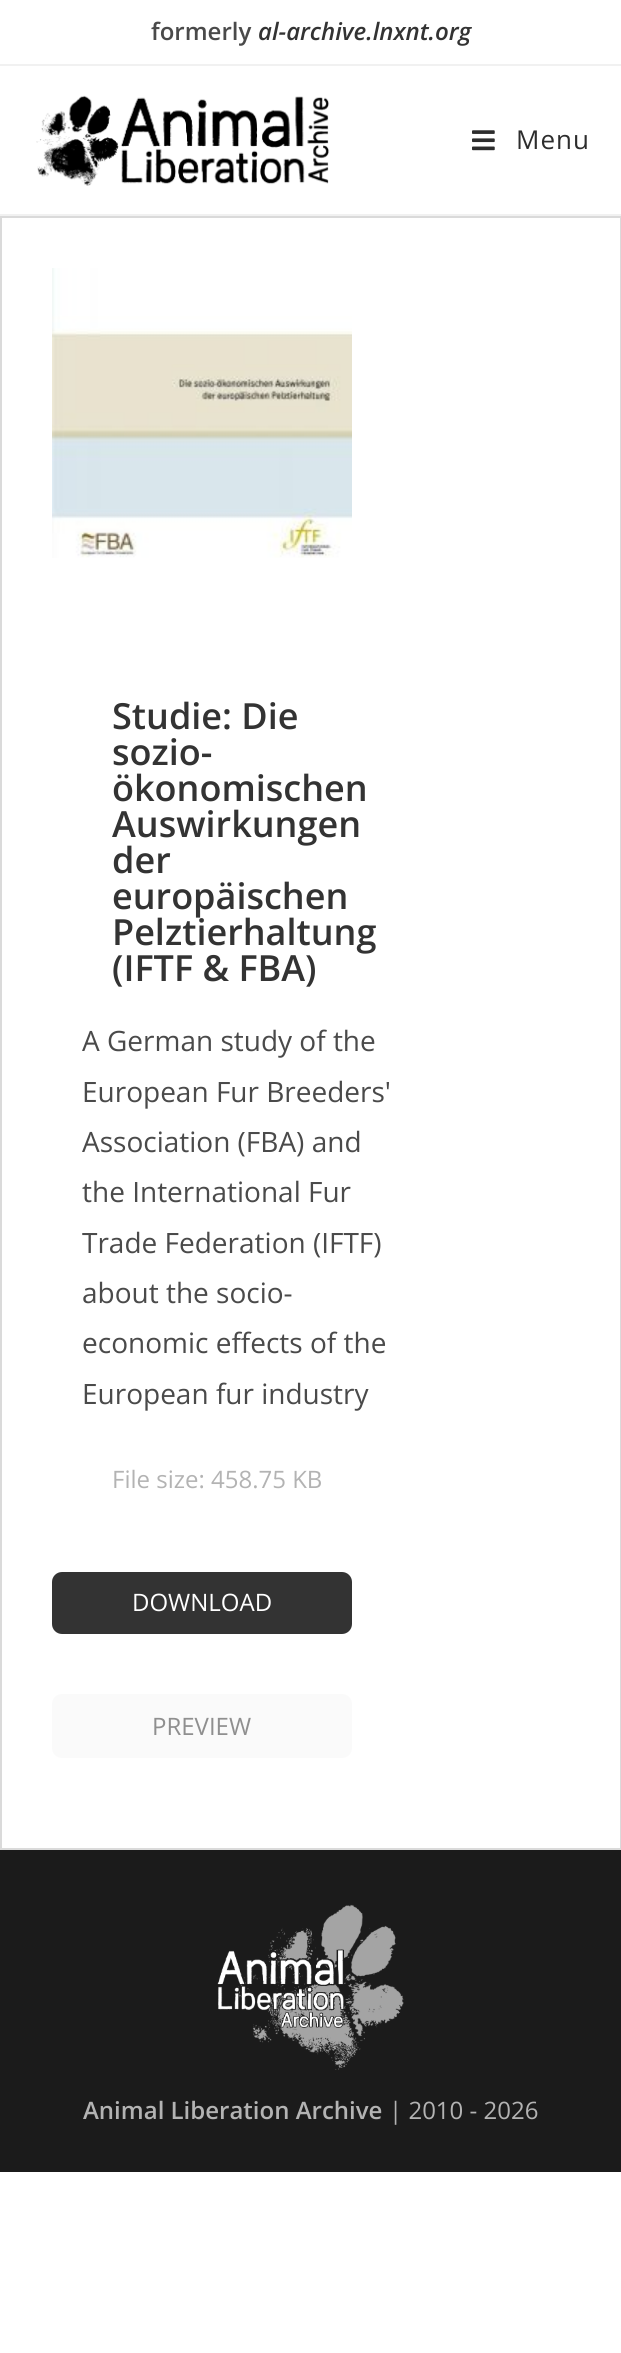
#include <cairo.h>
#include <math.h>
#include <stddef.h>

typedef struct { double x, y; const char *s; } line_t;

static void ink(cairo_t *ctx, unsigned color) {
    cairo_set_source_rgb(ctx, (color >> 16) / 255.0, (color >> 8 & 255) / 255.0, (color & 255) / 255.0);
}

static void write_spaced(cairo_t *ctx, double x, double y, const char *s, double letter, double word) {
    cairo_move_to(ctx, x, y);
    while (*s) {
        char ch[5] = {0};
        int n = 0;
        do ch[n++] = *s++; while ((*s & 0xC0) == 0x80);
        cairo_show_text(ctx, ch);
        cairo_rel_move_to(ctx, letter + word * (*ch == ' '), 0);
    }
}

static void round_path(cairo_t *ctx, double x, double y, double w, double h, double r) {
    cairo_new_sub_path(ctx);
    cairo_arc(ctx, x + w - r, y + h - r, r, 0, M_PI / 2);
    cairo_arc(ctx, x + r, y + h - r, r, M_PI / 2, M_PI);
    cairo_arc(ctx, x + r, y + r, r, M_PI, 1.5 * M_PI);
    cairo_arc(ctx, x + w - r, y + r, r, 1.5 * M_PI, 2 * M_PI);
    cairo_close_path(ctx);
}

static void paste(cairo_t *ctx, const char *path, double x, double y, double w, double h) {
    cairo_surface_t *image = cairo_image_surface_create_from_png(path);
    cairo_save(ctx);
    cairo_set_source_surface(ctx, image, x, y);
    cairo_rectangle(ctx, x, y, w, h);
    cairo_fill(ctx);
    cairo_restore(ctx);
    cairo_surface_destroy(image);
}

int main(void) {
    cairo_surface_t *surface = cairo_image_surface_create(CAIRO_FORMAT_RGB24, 621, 2353);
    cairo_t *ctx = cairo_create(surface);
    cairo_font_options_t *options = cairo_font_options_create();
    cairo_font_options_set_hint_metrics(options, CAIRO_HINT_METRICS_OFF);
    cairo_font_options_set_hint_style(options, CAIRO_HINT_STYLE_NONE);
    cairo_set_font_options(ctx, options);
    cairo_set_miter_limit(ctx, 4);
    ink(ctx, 0xFFFFFF);
    cairo_paint(ctx);
    ink(ctx, 0xF1F1F1);
    cairo_rectangle(ctx, 0, 64, 621, 2);
    cairo_fill(ctx);
    cairo_select_font_face(ctx, "Open Sans SemiBold", CAIRO_FONT_SLANT_NORMAL, CAIRO_FONT_WEIGHT_NORMAL);
    cairo_set_font_size(ctx, 24);
    ink(ctx, 0x4A4A4A);
    cairo_move_to(ctx, 151, 40);
    cairo_show_text(ctx, "formerly");
    cairo_select_font_face(ctx, "Open Sans SemiBold", CAIRO_FONT_SLANT_ITALIC, CAIRO_FONT_WEIGHT_NORMAL);
    ink(ctx, 0x333333);
    cairo_move_to(ctx, 258, 40);
    cairo_show_text(ctx, "al-archive.lnxnt.org");
    ink(ctx, 0xF1F1F1);
    cairo_rectangle(ctx, 0, 214, 621, 2);
    cairo_fill(ctx);
    paste(ctx, "media/1.png", 36, 95, 294, 91);
    paste(ctx, "media/2.png", 472, 130, 23, 21);
    cairo_select_font_face(ctx, "Open Sans", CAIRO_FONT_SLANT_NORMAL, CAIRO_FONT_WEIGHT_NORMAL);
    cairo_set_font_size(ctx, 26);
    ink(ctx, 0x2D2D2D);
    write_spaced(ctx, 516, 149, "Menu", 1, 0);
    cairo_rectangle(ctx, 1, 217, 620, 1632);
    ink(ctx, 0xDADADA);
    cairo_stroke(ctx);
    paste(ctx, "media/3.png", 52, 268, 300, 290);
    cairo_select_font_face(ctx, "Open Sans SemiBold", CAIRO_FONT_SLANT_NORMAL, CAIRO_FONT_WEIGHT_NORMAL);
    cairo_set_font_size(ctx, 36);
    ink(ctx, 0x333333);
    {
        static const line_t items[] = {
            {112, 729, "Studie: Die"},
            {112, 765, "sozio-"},
            {112, 801, "ökonomischen"},
            {112, 837, "Auswirkungen"},
            {112, 873, "der"},
            {112, 909, "europäischen"},
            {112, 945, "Pelztierhaltung"},
            {112, 981, "(IFTF & FBA)"},
        };
        for (size_t i = 0; i < sizeof items / sizeof *items; i++) {
            cairo_move_to(ctx, items[i].x, items[i].y);
            cairo_show_text(ctx, items[i].s);
        }
    }
    cairo_select_font_face(ctx, "Open Sans", CAIRO_FONT_SLANT_NORMAL, CAIRO_FONT_WEIGHT_NORMAL);
    cairo_set_font_size(ctx, 28);
    ink(ctx, 0x4A4A4A);
    {
        static const line_t items[] = {
            {82, 1051, "A German study of the"},
            {82, 1102, "European Fur Breeders'"},
            {82, 1152, "Association (FBA) and"},
            {82, 1202, "the International Fur"},
            {82, 1253, "Trade Federation (IFTF)"},
            {82, 1303, "about the socio-"},
            {82, 1353, "economic effects of the"},
            {82, 1404, "European fur industry"},
        };
        for (size_t i = 0; i < sizeof items / sizeof *items; i++) {
            cairo_move_to(ctx, items[i].x, items[i].y);
            cairo_show_text(ctx, items[i].s);
        }
    }
    cairo_set_font_size(ctx, 24);
    ink(ctx, 0xB3B3B3);
    cairo_move_to(ctx, 112, 1488);
    cairo_show_text(ctx, "File size: 458.75 KB");
    ink(ctx, 0x333333);
    round_path(ctx, 52, 1572, 300, 62, 10);
    cairo_fill(ctx);
    ink(ctx, 0xFFFFFF);
    cairo_move_to(ctx, 132, 1611);
    cairo_show_text(ctx, "DOWNLOAD");
    ink(ctx, 0xFAFAFA);
    round_path(ctx, 52, 1694, 300, 64, 10);
    cairo_fill(ctx);
    ink(ctx, 0x8F8F8F);
    cairo_move_to(ctx, 152, 1735);
    cairo_show_text(ctx, "PREVIEW");
    ink(ctx, 0x1B1B1B);
    cairo_rectangle(ctx, 0, 1850, 621, 322);
    cairo_fill(ctx);
    paste(ctx, "media/4.png", 217, 1904, 187, 166);
    cairo_select_font_face(ctx, "Open Sans SemiBold", CAIRO_FONT_SLANT_NORMAL, CAIRO_FONT_WEIGHT_NORMAL);
    ink(ctx, 0xB3B3B3);
    cairo_move_to(ctx, 83, 2119);
    cairo_show_text(ctx, "Animal Liberation Archive");
    cairo_select_font_face(ctx, "Open Sans", CAIRO_FONT_SLANT_NORMAL, CAIRO_FONT_WEIGHT_NORMAL);
    cairo_move_to(ctx, 389, 2119);
    cairo_show_text(ctx, "| 2010 - 2026");
    cairo_surface_write_to_png(surface, "image.png");
    cairo_font_options_destroy(options);
    cairo_destroy(ctx);
    cairo_surface_destroy(surface);
    return 0;
}
